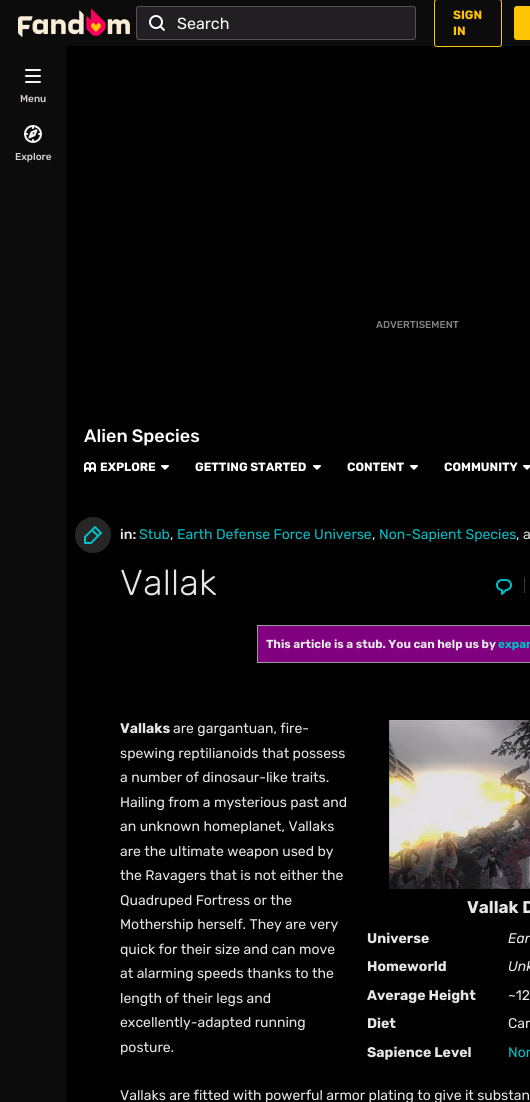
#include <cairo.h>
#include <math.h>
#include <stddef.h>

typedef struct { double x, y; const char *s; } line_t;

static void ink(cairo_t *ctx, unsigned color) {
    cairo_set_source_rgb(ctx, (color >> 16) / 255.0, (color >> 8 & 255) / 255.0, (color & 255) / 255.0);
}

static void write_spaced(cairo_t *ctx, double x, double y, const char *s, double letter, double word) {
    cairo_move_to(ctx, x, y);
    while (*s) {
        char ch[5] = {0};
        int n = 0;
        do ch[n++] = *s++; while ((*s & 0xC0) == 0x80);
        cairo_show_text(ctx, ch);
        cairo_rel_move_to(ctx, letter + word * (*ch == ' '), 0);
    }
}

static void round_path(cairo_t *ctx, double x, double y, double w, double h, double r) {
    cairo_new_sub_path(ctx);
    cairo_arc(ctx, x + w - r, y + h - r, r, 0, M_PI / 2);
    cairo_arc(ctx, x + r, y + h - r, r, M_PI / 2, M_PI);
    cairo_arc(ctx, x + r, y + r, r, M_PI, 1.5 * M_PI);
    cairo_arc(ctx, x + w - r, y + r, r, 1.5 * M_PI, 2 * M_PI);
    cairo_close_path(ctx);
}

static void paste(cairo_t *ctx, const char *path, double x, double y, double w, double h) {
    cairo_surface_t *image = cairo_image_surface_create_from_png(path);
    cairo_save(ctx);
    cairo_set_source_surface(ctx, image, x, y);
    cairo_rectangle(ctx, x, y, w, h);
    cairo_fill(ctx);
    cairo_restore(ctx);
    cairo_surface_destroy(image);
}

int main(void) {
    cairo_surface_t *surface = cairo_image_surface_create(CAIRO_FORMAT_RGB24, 530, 1102);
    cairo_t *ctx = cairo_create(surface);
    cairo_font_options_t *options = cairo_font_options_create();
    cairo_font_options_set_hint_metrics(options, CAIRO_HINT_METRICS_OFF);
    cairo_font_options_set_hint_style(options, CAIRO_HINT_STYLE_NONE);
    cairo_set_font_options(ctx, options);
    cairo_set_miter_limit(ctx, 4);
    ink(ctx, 0x010101);
    cairo_paint(ctx);
    ink(ctx, 0x0C0C0C);
    cairo_rectangle(ctx, 0, 0, 530, 46);
    cairo_fill(ctx);
    paste(ctx, "media/1.png", 18, 9, 112, 28);
    ink(ctx, 0x211F21);
    round_path(ctx, 136, 6, 280, 34, 3);
    cairo_fill(ctx);
    round_path(ctx, 136.5, 6.5, 279, 33, 2.5);
    cairo_set_source_rgba(ctx, 0.961, 0.953, 0.961, 0.25);
    cairo_set_line_width(ctx, 1);
    cairo_stroke(ctx);
    paste(ctx, "media/2.png", 149, 15, 16, 16);
    cairo_select_font_face(ctx, "Rubik", CAIRO_FONT_SLANT_NORMAL, CAIRO_FONT_WEIGHT_NORMAL);
    cairo_set_font_size(ctx, 16);
    ink(ctx, 0xFFFFFF);
    cairo_move_to(ctx, 177, 29);
    cairo_show_text(ctx, "Search");
    round_path(ctx, 434.5, -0.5, 67, 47, 2.5);
    ink(ctx, 0xFFC500);
    cairo_stroke(ctx);
    cairo_select_font_face(ctx, "Rubik", CAIRO_FONT_SLANT_NORMAL, CAIRO_FONT_WEIGHT_BOLD);
    cairo_set_font_size(ctx, 12);
    cairo_move_to(ctx, 453, 19);
    cairo_show_text(ctx, "SIGN");
    cairo_move_to(ctx, 453, 35);
    cairo_show_text(ctx, "IN");
    round_path(ctx, 514.5, 6.5, 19, 33, 2.5);
    cairo_fill_preserve(ctx);
    cairo_stroke(ctx);
    ink(ctx, 0x0C0C0C);
    cairo_rectangle(ctx, 0, 46, 66, 1056);
    cairo_fill(ctx);
    paste(ctx, "media/3.png", 25, 69, 16, 14);
    cairo_select_font_face(ctx, "Rubik Medium", CAIRO_FONT_SLANT_NORMAL, CAIRO_FONT_WEIGHT_NORMAL);
    cairo_set_font_size(ctx, 10);
    ink(ctx, 0xD6D0D5);
    cairo_move_to(ctx, 20, 102);
    cairo_show_text(ctx, "Menu");
    paste(ctx, "media/4.png", 24, 125, 18, 18);
    cairo_move_to(ctx, 15, 160);
    cairo_show_text(ctx, "Explore");
    ink(ctx, 0x838283);
    cairo_move_to(ctx, 376, 328);
    cairo_show_text(ctx, "ADVERTISEMENT");
    cairo_set_font_size(ctx, 18);
    ink(ctx, 0xFFFFFF);
    cairo_move_to(ctx, 84, 442);
    cairo_show_text(ctx, "Alien Species");
    paste(ctx, "media/5.png", 84, 462, 12, 10);
    cairo_select_font_face(ctx, "Rubik", CAIRO_FONT_SLANT_NORMAL, CAIRO_FONT_WEIGHT_BOLD);
    cairo_set_font_size(ctx, 12);
    cairo_move_to(ctx, 100, 471);
    cairo_show_text(ctx, "EXPLORE");
    paste(ctx, "media/6.png", 161, 465, 8, 5);
    cairo_move_to(ctx, 195, 471);
    cairo_show_text(ctx, "GETTING STARTED");
    paste(ctx, "media/6.png", 313, 465, 8, 5);
    cairo_move_to(ctx, 347, 471);
    cairo_show_text(ctx, "CONTENT");
    paste(ctx, "media/6.png", 410, 465, 8, 5);
    cairo_move_to(ctx, 444, 471);
    cairo_show_text(ctx, "COMMUNITY");
    paste(ctx, "media/7.png", 523, 465, 7, 5);
    ink(ctx, 0x262626);
    cairo_arc(ctx, 93, 535, 18, 0, 2 * M_PI);
    cairo_fill(ctx);
    paste(ctx, "media/8.png", 84, 526, 18, 18);
    cairo_select_font_face(ctx, "Rubik Medium", CAIRO_FONT_SLANT_NORMAL, CAIRO_FONT_WEIGHT_NORMAL);
    cairo_set_font_size(ctx, 14);
    ink(ctx, 0xE6E6E6);
    cairo_move_to(ctx, 120, 539);
    cairo_show_text(ctx, "in:");
    cairo_select_font_face(ctx, "Rubik", CAIRO_FONT_SLANT_NORMAL, CAIRO_FONT_WEIGHT_NORMAL);
    ink(ctx, 0x03C0C6);
    cairo_move_to(ctx, 139, 539);
    cairo_show_text(ctx, "Stub");
    ink(ctx, 0xE6E6E6);
    cairo_move_to(ctx, 170, 539);
    cairo_show_text(ctx, ",");
    ink(ctx, 0x03C0C6);
    cairo_move_to(ctx, 177, 539);
    cairo_show_text(ctx, "Earth Defense Force Universe");
    ink(ctx, 0xE6E6E6);
    cairo_move_to(ctx, 372, 539);
    cairo_show_text(ctx, ",");
    ink(ctx, 0x03C0C6);
    cairo_move_to(ctx, 379, 539);
    cairo_show_text(ctx, "Non-Sapient Species");
    ink(ctx, 0xE6E6E6);
    cairo_move_to(ctx, 516, 539);
    cairo_show_text(ctx, ", a");
    cairo_select_font_face(ctx, "Rubik Light", CAIRO_FONT_SLANT_NORMAL, CAIRO_FONT_WEIGHT_NORMAL);
    cairo_set_font_size(ctx, 36);
    write_spaced(ctx, 120, 595, "Vallak", 0.25, 0);
    paste(ctx, "media/9.png", 496, 579, 16, 16);
    ink(ctx, 0x3A3A3A);
    cairo_rectangle(ctx, 524, 577, 1, 16);
    cairo_fill(ctx);
    ink(ctx, 0x800080);
    cairo_rectangle(ctx, 257.5, 625.5, 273, 37);
    cairo_fill_preserve(ctx);
    ink(ctx, 0x999999);
    cairo_stroke(ctx);
    cairo_select_font_face(ctx, "Rubik", CAIRO_FONT_SLANT_NORMAL, CAIRO_FONT_WEIGHT_BOLD);
    cairo_set_font_size(ctx, 11.7);
    ink(ctx, 0xE6E6E6);
    cairo_move_to(ctx, 266, 648);
    cairo_show_text(ctx, "This article is a stub. You can help us by");
    ink(ctx, 0x03C0C6);
    cairo_move_to(ctx, 498, 648);
    cairo_show_text(ctx, "expan");
    cairo_set_font_size(ctx, 14);
    ink(ctx, 0xE6E6E6);
    cairo_move_to(ctx, 120, 733);
    cairo_show_text(ctx, "Vallaks");
    cairo_select_font_face(ctx, "Rubik", CAIRO_FONT_SLANT_NORMAL, CAIRO_FONT_WEIGHT_NORMAL);
    {
        static const line_t items[] = {
            {173, 733, "are gargantuan, fire-"},
            {120, 758, "spewing reptilianoids that possess"},
            {120, 782, "a number of dinosaur-like traits."},
            {120, 807, "Hailing from a mysterious past and"},
            {120, 831, "an unknown homeplanet, Vallaks"},
            {120, 856, "are the ultimate weapon used by"},
            {120, 880, "the Ravagers that is not either the"},
            {120, 905, "Quadruped Fortress or the"},
            {120, 929, "Mothership herself. They are very"},
            {120, 954, "quick for their size and can move"},
            {120, 978, "at alarming speeds thanks to the"},
            {120, 1003, "length of their legs and"},
            {120, 1027, "excellently-adapted running"},
            {120, 1052, "posture."},
        };
        for (size_t i = 0; i < sizeof items / sizeof *items; i++) {
            cairo_move_to(ctx, items[i].x, items[i].y);
            cairo_show_text(ctx, items[i].s);
        }
    }
    paste(ctx, "media/10.png", 389, 720, 141, 169);
    cairo_select_font_face(ctx, "Rubik", CAIRO_FONT_SLANT_NORMAL, CAIRO_FONT_WEIGHT_BOLD);
    cairo_set_font_size(ctx, 17);
    cairo_move_to(ctx, 467, 913);
    cairo_show_text(ctx, "Vallak D");
    cairo_set_font_size(ctx, 14);
    cairo_move_to(ctx, 367, 943);
    cairo_show_text(ctx, "Universe");
    cairo_select_font_face(ctx, "Rubik", CAIRO_FONT_SLANT_ITALIC, CAIRO_FONT_WEIGHT_NORMAL);
    cairo_move_to(ctx, 508, 943);
    cairo_show_text(ctx, "Ear");
    cairo_select_font_face(ctx, "Rubik", CAIRO_FONT_SLANT_NORMAL, CAIRO_FONT_WEIGHT_BOLD);
    cairo_move_to(ctx, 367, 971);
    cairo_show_text(ctx, "Homeworld");
    cairo_select_font_face(ctx, "Rubik", CAIRO_FONT_SLANT_ITALIC, CAIRO_FONT_WEIGHT_NORMAL);
    cairo_move_to(ctx, 508, 971);
    cairo_show_text(ctx, "Unk");
    cairo_select_font_face(ctx, "Rubik", CAIRO_FONT_SLANT_NORMAL, CAIRO_FONT_WEIGHT_BOLD);
    cairo_move_to(ctx, 367, 1000);
    cairo_show_text(ctx, "Average Height");
    cairo_select_font_face(ctx, "Rubik", CAIRO_FONT_SLANT_NORMAL, CAIRO_FONT_WEIGHT_NORMAL);
    cairo_move_to(ctx, 508, 1000);
    cairo_show_text(ctx, "~12");
    cairo_select_font_face(ctx, "Rubik", CAIRO_FONT_SLANT_NORMAL, CAIRO_FONT_WEIGHT_BOLD);
    cairo_move_to(ctx, 367, 1028);
    cairo_show_text(ctx, "Diet");
    cairo_select_font_face(ctx, "Rubik", CAIRO_FONT_SLANT_NORMAL, CAIRO_FONT_WEIGHT_NORMAL);
    cairo_move_to(ctx, 508, 1028);
    cairo_show_text(ctx, "Car");
    cairo_select_font_face(ctx, "Rubik", CAIRO_FONT_SLANT_NORMAL, CAIRO_FONT_WEIGHT_BOLD);
    cairo_move_to(ctx, 367, 1057);
    cairo_show_text(ctx, "Sapience Level");
    cairo_select_font_face(ctx, "Rubik", CAIRO_FONT_SLANT_NORMAL, CAIRO_FONT_WEIGHT_NORMAL);
    ink(ctx, 0x03C0C6);
    cairo_move_to(ctx, 508, 1057);
    cairo_show_text(ctx, "Non");
    ink(ctx, 0xE6E6E6);
    cairo_move_to(ctx, 120, 1100);
    cairo_show_text(ctx, "Vallaks are fitted with powerful armor plating to give it substan");
    cairo_surface_write_to_png(surface, "image.png");
    cairo_font_options_destroy(options);
    cairo_destroy(ctx);
    cairo_surface_destroy(surface);
    return 0;
}
